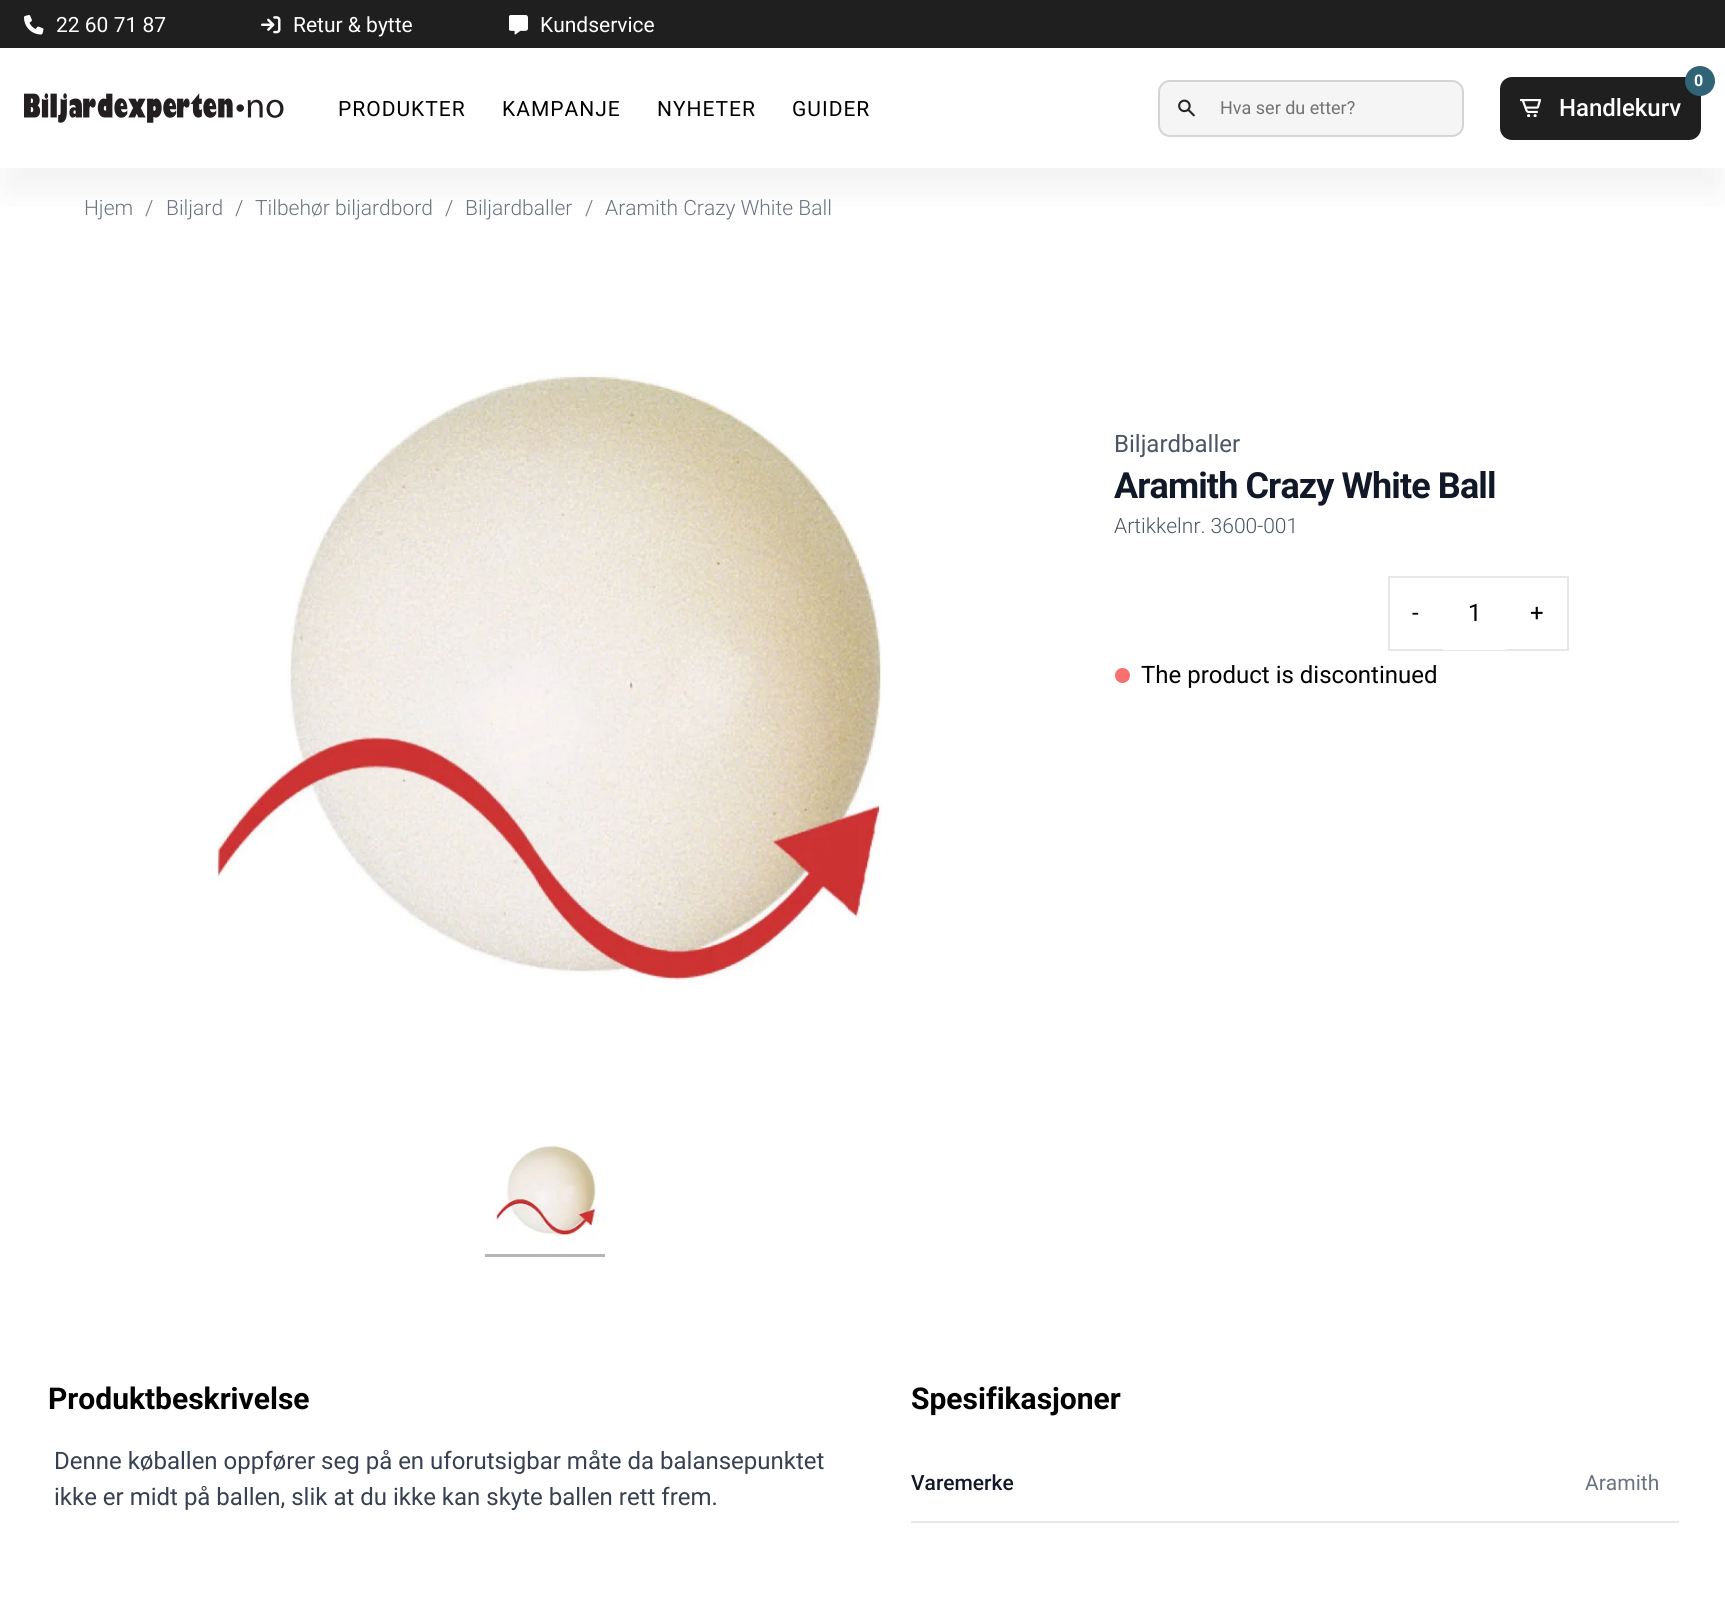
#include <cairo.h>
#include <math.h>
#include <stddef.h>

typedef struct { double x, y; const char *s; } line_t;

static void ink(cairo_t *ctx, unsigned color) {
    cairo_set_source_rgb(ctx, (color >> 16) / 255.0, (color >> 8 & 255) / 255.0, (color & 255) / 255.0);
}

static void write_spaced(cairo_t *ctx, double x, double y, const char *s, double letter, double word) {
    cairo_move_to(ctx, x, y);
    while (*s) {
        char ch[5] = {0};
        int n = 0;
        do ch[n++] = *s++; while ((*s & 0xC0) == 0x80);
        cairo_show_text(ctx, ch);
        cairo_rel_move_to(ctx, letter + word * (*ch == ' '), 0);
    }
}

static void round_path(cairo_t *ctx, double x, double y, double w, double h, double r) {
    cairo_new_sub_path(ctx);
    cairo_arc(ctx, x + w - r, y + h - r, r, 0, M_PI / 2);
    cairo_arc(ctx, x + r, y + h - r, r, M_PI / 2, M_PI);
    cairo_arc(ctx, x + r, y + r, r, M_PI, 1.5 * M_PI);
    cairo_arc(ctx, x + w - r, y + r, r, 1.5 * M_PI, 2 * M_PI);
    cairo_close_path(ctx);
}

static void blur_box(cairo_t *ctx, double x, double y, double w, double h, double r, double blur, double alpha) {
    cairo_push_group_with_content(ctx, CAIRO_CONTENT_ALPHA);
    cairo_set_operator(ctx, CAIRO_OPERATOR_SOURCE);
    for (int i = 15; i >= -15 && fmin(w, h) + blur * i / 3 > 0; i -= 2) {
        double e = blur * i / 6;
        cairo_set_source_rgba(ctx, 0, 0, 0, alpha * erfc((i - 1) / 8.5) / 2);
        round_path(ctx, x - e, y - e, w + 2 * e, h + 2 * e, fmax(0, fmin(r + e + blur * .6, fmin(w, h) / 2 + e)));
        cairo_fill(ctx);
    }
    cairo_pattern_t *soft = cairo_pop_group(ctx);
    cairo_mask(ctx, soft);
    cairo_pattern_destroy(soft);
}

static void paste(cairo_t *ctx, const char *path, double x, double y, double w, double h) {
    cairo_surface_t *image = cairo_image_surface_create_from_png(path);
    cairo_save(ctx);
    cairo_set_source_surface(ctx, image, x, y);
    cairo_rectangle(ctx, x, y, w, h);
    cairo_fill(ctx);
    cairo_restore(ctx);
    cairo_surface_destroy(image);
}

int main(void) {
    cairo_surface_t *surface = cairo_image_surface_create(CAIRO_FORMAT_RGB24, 1725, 1604);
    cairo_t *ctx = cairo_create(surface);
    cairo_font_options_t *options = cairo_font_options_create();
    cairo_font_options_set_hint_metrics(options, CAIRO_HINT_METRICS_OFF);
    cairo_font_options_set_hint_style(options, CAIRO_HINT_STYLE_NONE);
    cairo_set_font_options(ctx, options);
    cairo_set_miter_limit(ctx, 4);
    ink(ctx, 0xFFFFFF);
    cairo_paint(ctx);
    ink(ctx, 0x1F1F1F);
    cairo_rectangle(ctx, 0, 0, 1725, 48);
    cairo_fill(ctx);
    cairo_save(ctx);
    cairo_rectangle(ctx, 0, 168, 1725, 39);
    cairo_clip(ctx);
    ink(ctx, 0x737373);
    blur_box(ctx, 8, 86, 1710, 105, 0, 19, 0.1);
    cairo_restore(ctx);
    paste(ctx, "media/1.png", 24, 15, 20, 20);
    cairo_select_font_face(ctx, "Roboto", CAIRO_FONT_SLANT_NORMAL, CAIRO_FONT_WEIGHT_NORMAL);
    cairo_set_font_size(ctx, 21);
    ink(ctx, 0xFFFFFF);
    cairo_move_to(ctx, 56, 32);
    cairo_show_text(ctx, "22 60 71 87");
    paste(ctx, "media/2.png", 261, 16, 20, 18);
    cairo_move_to(ctx, 293, 32);
    cairo_show_text(ctx, "Retur & bytte");
    paste(ctx, "media/3.png", 509, 15, 19, 20);
    cairo_move_to(ctx, 540, 32);
    cairo_show_text(ctx, "Kundservice");
    paste(ctx, "media/4.png", 24, 93, 260, 30);
    ink(ctx, 0x000000);
    {
        static const line_t items[] = {
            {338, 116, "PRODUKTER"},
            {502, 116, "KAMPANJE"},
            {657, 116, "NYHETER"},
            {792, 116, "GUIDER"},
        };
        for (size_t i = 0; i < sizeof items / sizeof *items; i++) {
            write_spaced(ctx, items[i].x, items[i].y, items[i].s, 1, 0);
        }
    }
    ink(ctx, 0xF5F5F5);
    round_path(ctx, 1159, 81, 304, 55, 11);
    cairo_fill_preserve(ctx);
    ink(ctx, 0xD4D4D4);
    cairo_stroke(ctx);
    paste(ctx, "media/5.png", 1178, 99, 17, 18);
    cairo_set_font_size(ctx, 18);
    ink(ctx, 0x737373);
    cairo_move_to(ctx, 1220, 114);
    cairo_show_text(ctx, "Hva ser du etter?");
    ink(ctx, 0x1F1F1F);
    round_path(ctx, 1500, 77, 201, 63, 12);
    cairo_fill(ctx);
    ink(ctx, 0x316376);
    cairo_arc(ctx, 1700, 81, 15, 0, 2 * M_PI);
    cairo_fill(ctx);
    cairo_select_font_face(ctx, "Roboto", CAIRO_FONT_SLANT_NORMAL, CAIRO_FONT_WEIGHT_BOLD);
    cairo_set_font_size(ctx, 16);
    ink(ctx, 0xFFFFFF);
    cairo_move_to(ctx, 1694, 86);
    cairo_show_text(ctx, "0");
    paste(ctx, "media/6.png", 1520, 99, 21, 18);
    cairo_select_font_face(ctx, "Roboto Medium", CAIRO_FONT_SLANT_NORMAL, CAIRO_FONT_WEIGHT_NORMAL);
    cairo_set_font_size(ctx, 24);
    cairo_move_to(ctx, 1559, 116);
    cairo_show_text(ctx, "Handlekurv");
    cairo_select_font_face(ctx, "Roboto Light", CAIRO_FONT_SLANT_NORMAL, CAIRO_FONT_WEIGHT_NORMAL);
    cairo_set_font_size(ctx, 21);
    ink(ctx, 0x6B7280);
    {
        static const line_t items[] = {
            {84, 215, "Hjem"},
            {145, 215, "/"},
            {166, 215, "Biljard"},
            {235, 215, "/"},
            {255, 215, "Tilbehør biljardbord"},
            {445, 215, "/"},
            {465, 215, "Biljardballer"},
            {585, 215, "/"},
            {605, 215, "Aramith Crazy White Ball"},
        };
        for (size_t i = 0; i < sizeof items / sizeof *items; i++) {
            cairo_move_to(ctx, items[i].x, items[i].y);
            cairo_show_text(ctx, items[i].s);
        }
    }
    paste(ctx, "media/7.png", 217, 373, 665, 610);
    ink(ctx, 0xB4B4B4);
    cairo_rectangle(ctx, 485, 1254, 120, 3);
    cairo_fill(ctx);
    paste(ctx, "media/8.png", 493, 1145, 105, 95);
    cairo_select_font_face(ctx, "Roboto", CAIRO_FONT_SLANT_NORMAL, CAIRO_FONT_WEIGHT_NORMAL);
    cairo_set_font_size(ctx, 24);
    ink(ctx, 0x4B5563);
    cairo_move_to(ctx, 1114, 452);
    cairo_show_text(ctx, "Biljardballer");
    cairo_select_font_face(ctx, "Roboto", CAIRO_FONT_SLANT_NORMAL, CAIRO_FONT_WEIGHT_BOLD);
    cairo_set_font_size(ctx, 36);
    ink(ctx, 0x111827);
    write_spaced(ctx, 1114, 498, "Aramith Crazy White Ball", -0.9, 0);
    cairo_select_font_face(ctx, "Roboto Light", CAIRO_FONT_SLANT_NORMAL, CAIRO_FONT_WEIGHT_NORMAL);
    cairo_set_font_size(ctx, 21);
    ink(ctx, 0x4B5563);
    cairo_move_to(ctx, 1114, 533);
    cairo_show_text(ctx, "Artikkelnr. 3600-001");
    cairo_rectangle(ctx, 1389, 577, 179, 73);
    ink(ctx, 0xE5E7EB);
    cairo_stroke(ctx);
    cairo_select_font_face(ctx, "Roboto", CAIRO_FONT_SLANT_NORMAL, CAIRO_FONT_WEIGHT_NORMAL);
    cairo_set_font_size(ctx, 24);
    ink(ctx, 0x000000);
    cairo_move_to(ctx, 1412, 621);
    cairo_show_text(ctx, "-");
    ink(ctx, 0xFFFFFF);
    cairo_rectangle(ctx, 1443, 649, 63, 1);
    cairo_fill(ctx);
    ink(ctx, 0x000000);
    cairo_move_to(ctx, 1468, 621);
    cairo_show_text(ctx, "1");
    cairo_move_to(ctx, 1530, 621);
    cairo_show_text(ctx, "+");
    ink(ctx, 0xF87171);
    cairo_new_path(ctx);
    cairo_arc(ctx, 1122.5, 675.5, 7.5, 0, 2 * M_PI);
    cairo_fill(ctx);
    ink(ctx, 0x000000);
    cairo_move_to(ctx, 1141, 683);
    cairo_show_text(ctx, "The product is discontinued");
    cairo_select_font_face(ctx, "Roboto", CAIRO_FONT_SLANT_NORMAL, CAIRO_FONT_WEIGHT_BOLD);
    cairo_set_font_size(ctx, 30);
    cairo_move_to(ctx, 48, 1409);
    cairo_show_text(ctx, "Produktbeskrivelse");
    cairo_select_font_face(ctx, "Roboto", CAIRO_FONT_SLANT_NORMAL, CAIRO_FONT_WEIGHT_NORMAL);
    cairo_set_font_size(ctx, 24);
    ink(ctx, 0x374151);
    cairo_move_to(ctx, 54, 1469);
    cairo_show_text(ctx, "Denne køballen oppfører seg på en uforutsigbar måte da balansepunktet");
    cairo_move_to(ctx, 54, 1505);
    cairo_show_text(ctx, "ikke er midt på ballen, slik at du ikke kan skyte ballen rett frem.");
    cairo_select_font_face(ctx, "Roboto", CAIRO_FONT_SLANT_NORMAL, CAIRO_FONT_WEIGHT_BOLD);
    cairo_set_font_size(ctx, 30);
    ink(ctx, 0x000000);
    cairo_move_to(ctx, 911, 1409);
    cairo_show_text(ctx, "Spesifikasjoner");
    ink(ctx, 0xE5E7EB);
    cairo_rectangle(ctx, 911, 1521, 768, 2);
    cairo_fill(ctx);
    cairo_select_font_face(ctx, "Roboto Medium", CAIRO_FONT_SLANT_NORMAL, CAIRO_FONT_WEIGHT_NORMAL);
    cairo_set_font_size(ctx, 21);
    ink(ctx, 0x111827);
    cairo_move_to(ctx, 911, 1490);
    cairo_show_text(ctx, "Varemerke");
    cairo_select_font_face(ctx, "Roboto", CAIRO_FONT_SLANT_NORMAL, CAIRO_FONT_WEIGHT_NORMAL);
    ink(ctx, 0x6B7280);
    cairo_move_to(ctx, 1585, 1490);
    cairo_show_text(ctx, "Aramith");
    cairo_surface_write_to_png(surface, "image.png");
    cairo_font_options_destroy(options);
    cairo_destroy(ctx);
    cairo_surface_destroy(surface);
    return 0;
}
